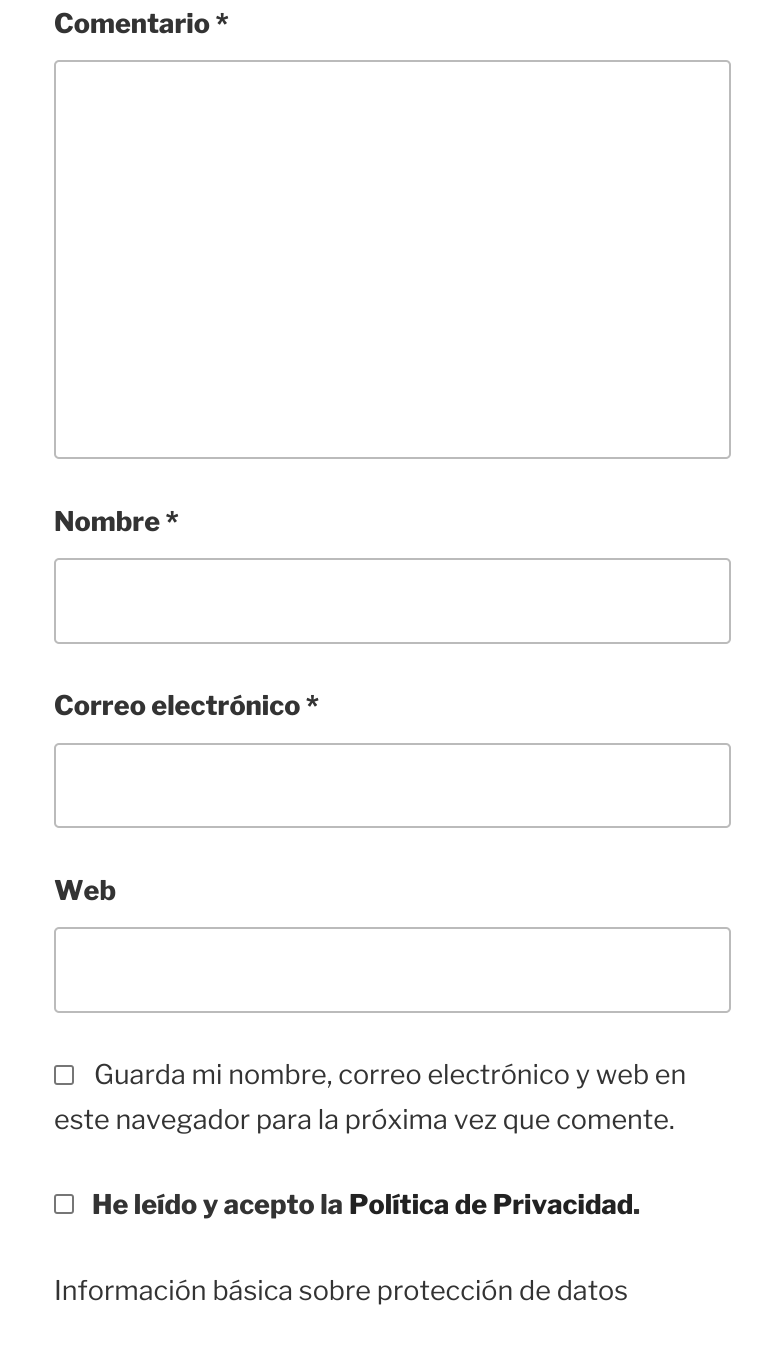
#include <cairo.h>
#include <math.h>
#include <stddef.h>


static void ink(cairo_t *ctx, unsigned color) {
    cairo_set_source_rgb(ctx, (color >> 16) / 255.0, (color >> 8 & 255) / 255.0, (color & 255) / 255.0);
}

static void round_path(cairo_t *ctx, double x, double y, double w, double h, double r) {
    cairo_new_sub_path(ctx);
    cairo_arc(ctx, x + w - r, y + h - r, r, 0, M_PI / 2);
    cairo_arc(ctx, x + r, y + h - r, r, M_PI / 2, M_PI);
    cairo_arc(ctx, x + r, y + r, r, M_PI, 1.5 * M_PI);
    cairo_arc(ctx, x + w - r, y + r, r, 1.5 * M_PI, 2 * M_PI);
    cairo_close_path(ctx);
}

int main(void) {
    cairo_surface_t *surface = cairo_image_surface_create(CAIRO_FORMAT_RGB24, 784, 1369);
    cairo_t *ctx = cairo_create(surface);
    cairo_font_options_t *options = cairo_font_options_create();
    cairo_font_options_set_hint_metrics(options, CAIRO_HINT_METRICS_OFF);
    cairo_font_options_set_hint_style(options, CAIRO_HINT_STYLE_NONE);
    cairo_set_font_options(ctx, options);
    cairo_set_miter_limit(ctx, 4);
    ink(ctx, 0xFFFFFF);
    cairo_paint(ctx);
    cairo_select_font_face(ctx, "Libre Franklin Thin", CAIRO_FONT_SLANT_NORMAL, CAIRO_FONT_WEIGHT_NORMAL);
    cairo_set_font_size(ctx, 27);
    ink(ctx, 0x333333);
    cairo_move_to(ctx, 54, 33);
    cairo_show_text(ctx, "Comentario *");
    round_path(ctx, 55, 61, 675, 397, 4);
    ink(ctx, 0xBBBBBB);
    cairo_stroke(ctx);
    ink(ctx, 0x333333);
    cairo_move_to(ctx, 54, 531);
    cairo_show_text(ctx, "Nombre *");
    round_path(ctx, 55, 559, 675, 84, 4);
    ink(ctx, 0xBBBBBB);
    cairo_stroke(ctx);
    ink(ctx, 0x333333);
    cairo_move_to(ctx, 54, 715);
    cairo_show_text(ctx, "Correo electrónico *");
    round_path(ctx, 55, 744, 675, 83, 4);
    ink(ctx, 0xBBBBBB);
    cairo_stroke(ctx);
    ink(ctx, 0x333333);
    cairo_move_to(ctx, 54, 900);
    cairo_show_text(ctx, "Web");
    round_path(ctx, 55, 928, 675, 84, 4);
    ink(ctx, 0xBBBBBB);
    cairo_stroke(ctx);
    round_path(ctx, 55, 1066, 18, 18, 2);
    ink(ctx, 0x767676);
    cairo_stroke(ctx);
    cairo_select_font_face(ctx, "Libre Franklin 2 Thin", CAIRO_FONT_SLANT_NORMAL, CAIRO_FONT_WEIGHT_NORMAL);
    ink(ctx, 0x333333);
    cairo_move_to(ctx, 94, 1084);
    cairo_show_text(ctx, "Guarda mi nombre, correo electrónico y web en");
    cairo_move_to(ctx, 54, 1129);
    cairo_show_text(ctx, "este navegador para la próxima vez que comente.");
    round_path(ctx, 55, 1195, 18, 18, 2);
    ink(ctx, 0x767676);
    cairo_stroke(ctx);
    cairo_select_font_face(ctx, "Libre Franklin Thin", CAIRO_FONT_SLANT_NORMAL, CAIRO_FONT_WEIGHT_NORMAL);
    ink(ctx, 0x333333);
    cairo_move_to(ctx, 92, 1214);
    cairo_show_text(ctx, "He leído y acepto la");
    ink(ctx, 0x222222);
    cairo_move_to(ctx, 349, 1214);
    cairo_show_text(ctx, "Política de Privacidad");
    ink(ctx, 0x333333);
    cairo_move_to(ctx, 633, 1214);
    cairo_show_text(ctx, ".");
    cairo_select_font_face(ctx, "Libre Franklin 2 Thin", CAIRO_FONT_SLANT_NORMAL, CAIRO_FONT_WEIGHT_NORMAL);
    cairo_move_to(ctx, 54, 1300);
    cairo_show_text(ctx, "Información básica sobre protección de datos");
    cairo_surface_write_to_png(surface, "image.png");
    cairo_font_options_destroy(options);
    cairo_destroy(ctx);
    cairo_surface_destroy(surface);
    return 0;
}
